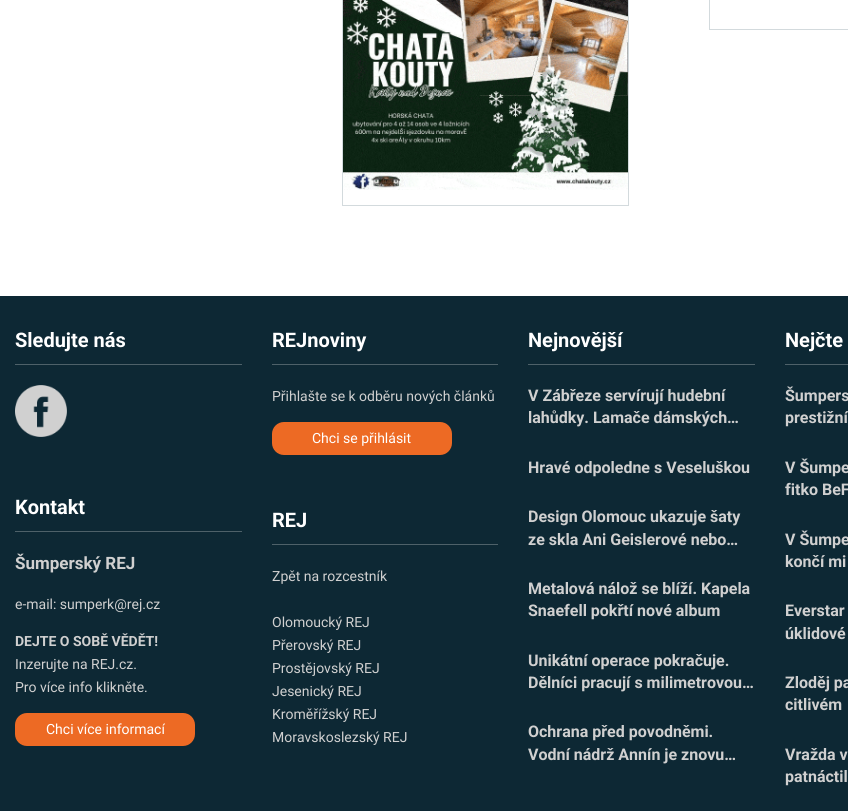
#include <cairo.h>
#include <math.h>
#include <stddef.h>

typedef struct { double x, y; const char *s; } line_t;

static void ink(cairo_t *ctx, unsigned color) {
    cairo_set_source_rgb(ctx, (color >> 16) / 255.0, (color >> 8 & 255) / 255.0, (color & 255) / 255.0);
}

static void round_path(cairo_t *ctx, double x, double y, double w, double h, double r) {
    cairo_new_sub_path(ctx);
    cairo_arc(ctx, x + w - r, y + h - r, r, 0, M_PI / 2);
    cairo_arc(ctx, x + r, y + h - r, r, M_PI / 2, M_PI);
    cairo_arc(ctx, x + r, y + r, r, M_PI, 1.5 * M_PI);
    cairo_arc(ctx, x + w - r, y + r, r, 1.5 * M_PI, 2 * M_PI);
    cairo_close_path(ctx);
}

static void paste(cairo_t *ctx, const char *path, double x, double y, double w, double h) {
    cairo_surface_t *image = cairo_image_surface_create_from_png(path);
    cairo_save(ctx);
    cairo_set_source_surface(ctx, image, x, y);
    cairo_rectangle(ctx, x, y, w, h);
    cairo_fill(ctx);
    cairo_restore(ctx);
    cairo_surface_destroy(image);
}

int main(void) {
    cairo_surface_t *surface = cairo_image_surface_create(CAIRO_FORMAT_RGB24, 848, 811);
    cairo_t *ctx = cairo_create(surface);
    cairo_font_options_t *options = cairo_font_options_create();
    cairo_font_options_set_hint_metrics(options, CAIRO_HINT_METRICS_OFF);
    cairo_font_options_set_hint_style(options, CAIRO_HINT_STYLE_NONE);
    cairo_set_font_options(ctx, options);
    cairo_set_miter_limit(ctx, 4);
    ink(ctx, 0xFFFFFF);
    cairo_paint(ctx);
    cairo_rectangle(ctx, 342.5, -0.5, 286, 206);
    ink(ctx, 0xD3DADD);
    cairo_set_line_width(ctx, 1);
    cairo_stroke(ctx);
    paste(ctx, "media/1.png", 343, 0, 285, 190);
    cairo_rectangle(ctx, 709.5, -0.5, 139, 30);
    cairo_stroke(ctx);
    ink(ctx, 0x0D2834);
    cairo_rectangle(ctx, 0, 296, 848, 515);
    cairo_fill(ctx);
    ink(ctx, 0x4E6169);
    cairo_rectangle(ctx, 15, 364, 227, 1);
    cairo_fill(ctx);
    cairo_select_font_face(ctx, "Roboto", CAIRO_FONT_SLANT_NORMAL, CAIRO_FONT_WEIGHT_BOLD);
    cairo_set_font_size(ctx, 20);
    ink(ctx, 0xFFFFFF);
    cairo_move_to(ctx, 15, 347);
    cairo_show_text(ctx, "Sledujte nás");
    paste(ctx, "media/2.png", 15, 385, 52, 52);
    ink(ctx, 0x4E6169);
    cairo_rectangle(ctx, 15, 531, 227, 1);
    cairo_fill(ctx);
    ink(ctx, 0xFFFFFF);
    cairo_move_to(ctx, 15, 514);
    cairo_show_text(ctx, "Kontakt");
    cairo_set_font_size(ctx, 17);
    ink(ctx, 0xD0D0D0);
    cairo_move_to(ctx, 15, 569);
    cairo_show_text(ctx, "Šumperský REJ");
    cairo_select_font_face(ctx, "Roboto", CAIRO_FONT_SLANT_NORMAL, CAIRO_FONT_WEIGHT_NORMAL);
    cairo_set_font_size(ctx, 14);
    cairo_move_to(ctx, 15, 609);
    cairo_show_text(ctx, "e-mail: sumperk@rej.cz");
    cairo_select_font_face(ctx, "Roboto", CAIRO_FONT_SLANT_NORMAL, CAIRO_FONT_WEIGHT_BOLD);
    cairo_move_to(ctx, 15, 646);
    cairo_show_text(ctx, "DEJTE O SOBĚ VĚDĚT!");
    cairo_select_font_face(ctx, "Roboto", CAIRO_FONT_SLANT_NORMAL, CAIRO_FONT_WEIGHT_NORMAL);
    cairo_move_to(ctx, 15, 669);
    cairo_show_text(ctx, "Inzerujte na REJ.cz.");
    cairo_move_to(ctx, 15, 692);
    cairo_show_text(ctx, "Pro více info klikněte.");
    ink(ctx, 0xED6A24);
    round_path(ctx, 15, 713, 180, 33, 12);
    cairo_fill(ctx);
    ink(ctx, 0xFFFFFF);
    cairo_move_to(ctx, 46, 734);
    cairo_show_text(ctx, "Chci více informací");
    ink(ctx, 0x4E6169);
    cairo_rectangle(ctx, 272, 364, 226, 1);
    cairo_fill(ctx);
    cairo_select_font_face(ctx, "Roboto", CAIRO_FONT_SLANT_NORMAL, CAIRO_FONT_WEIGHT_BOLD);
    cairo_set_font_size(ctx, 20);
    ink(ctx, 0xFFFFFF);
    cairo_move_to(ctx, 272, 347);
    cairo_show_text(ctx, "REJnoviny");
    cairo_select_font_face(ctx, "Roboto", CAIRO_FONT_SLANT_NORMAL, CAIRO_FONT_WEIGHT_NORMAL);
    cairo_set_font_size(ctx, 14);
    ink(ctx, 0xD0D0D0);
    cairo_move_to(ctx, 272, 401);
    cairo_show_text(ctx, "Přihlašte se k odběru nových článků");
    ink(ctx, 0xED6A24);
    round_path(ctx, 272, 422, 180, 33, 12);
    cairo_fill(ctx);
    ink(ctx, 0xFFFFFF);
    cairo_move_to(ctx, 312, 443);
    cairo_show_text(ctx, "Chci se přihlásit");
    ink(ctx, 0x4E6169);
    cairo_rectangle(ctx, 272, 544, 226, 1);
    cairo_fill(ctx);
    cairo_select_font_face(ctx, "Roboto", CAIRO_FONT_SLANT_NORMAL, CAIRO_FONT_WEIGHT_BOLD);
    cairo_set_font_size(ctx, 20);
    ink(ctx, 0xFFFFFF);
    cairo_move_to(ctx, 272, 527);
    cairo_show_text(ctx, "REJ");
    cairo_select_font_face(ctx, "Roboto", CAIRO_FONT_SLANT_NORMAL, CAIRO_FONT_WEIGHT_NORMAL);
    cairo_set_font_size(ctx, 14);
    ink(ctx, 0xD0D0D0);
    {
        static const line_t items[] = {
            {272, 581, "Zpět na rozcestník"},
            {272, 627, "Olomoucký REJ"},
            {272, 650, "Přerovský REJ"},
            {272, 673, "Prostějovský REJ"},
            {272, 696, "Jesenický REJ"},
            {272, 719, "Kroměřížský REJ"},
            {272, 742, "Moravskoslezský REJ"},
        };
        for (size_t i = 0; i < sizeof items / sizeof *items; i++) {
            cairo_move_to(ctx, items[i].x, items[i].y);
            cairo_show_text(ctx, items[i].s);
        }
    }
    ink(ctx, 0x4E6169);
    cairo_rectangle(ctx, 528, 364, 227, 1);
    cairo_fill(ctx);
    cairo_select_font_face(ctx, "Roboto", CAIRO_FONT_SLANT_NORMAL, CAIRO_FONT_WEIGHT_BOLD);
    cairo_set_font_size(ctx, 20);
    ink(ctx, 0xFFFFFF);
    cairo_move_to(ctx, 528, 347);
    cairo_show_text(ctx, "Nejnovější");
    cairo_set_font_size(ctx, 16);
    ink(ctx, 0xD0D0D0);
    {
        static const line_t items[] = {
            {528, 401, "V Zábřeze servírují hudební"},
            {528, 423, "lahůdky. Lamače dámských…"},
            {528, 473, "Hravé odpoledne s Veseluškou"},
            {528, 522, "Design Olomouc ukazuje šaty"},
            {528, 545, "ze skla Ani Geislerové nebo…"},
            {528, 594, "Metalová nálož se blíží. Kapela"},
            {528, 616, "Snaefell pokřtí nové album"},
            {528, 666, "Unikátní operace pokračuje."},
            {528, 688, "Dělníci pracují s milimetrovou…"},
            {528, 737, "Ochrana před povodněmi."},
            {528, 760, "Vodní nádrž Annín je znovu…"},
        };
        for (size_t i = 0; i < sizeof items / sizeof *items; i++) {
            cairo_move_to(ctx, items[i].x, items[i].y);
            cairo_show_text(ctx, items[i].s);
        }
    }
    ink(ctx, 0x4E6169);
    cairo_rectangle(ctx, 785, 364, 63, 1);
    cairo_fill(ctx);
    cairo_set_font_size(ctx, 20);
    ink(ctx, 0xFFFFFF);
    cairo_move_to(ctx, 785, 347);
    cairo_show_text(ctx, "Nejčte");
    cairo_set_font_size(ctx, 16);
    ink(ctx, 0xD0D0D0);
    {
        static const line_t items[] = {
            {785, 401, "Šumpers"},
            {785, 423, "prestižní"},
            {785, 473, "V Šumpe"},
            {785, 495, "fitko BeF"},
            {785, 545, "V Šumpe"},
            {785, 567, "končí mi"},
            {785, 616, "Everstar"},
            {785, 639, "úklidové"},
            {785, 688, "Zloděj pa"},
            {785, 710, "citlivém"},
            {785, 760, "Vražda v"},
            {785, 782, "patnáctil"},
        };
        for (size_t i = 0; i < sizeof items / sizeof *items; i++) {
            cairo_move_to(ctx, items[i].x, items[i].y);
            cairo_show_text(ctx, items[i].s);
        }
    }
    cairo_surface_write_to_png(surface, "image.png");
    cairo_font_options_destroy(options);
    cairo_destroy(ctx);
    cairo_surface_destroy(surface);
    return 0;
}
